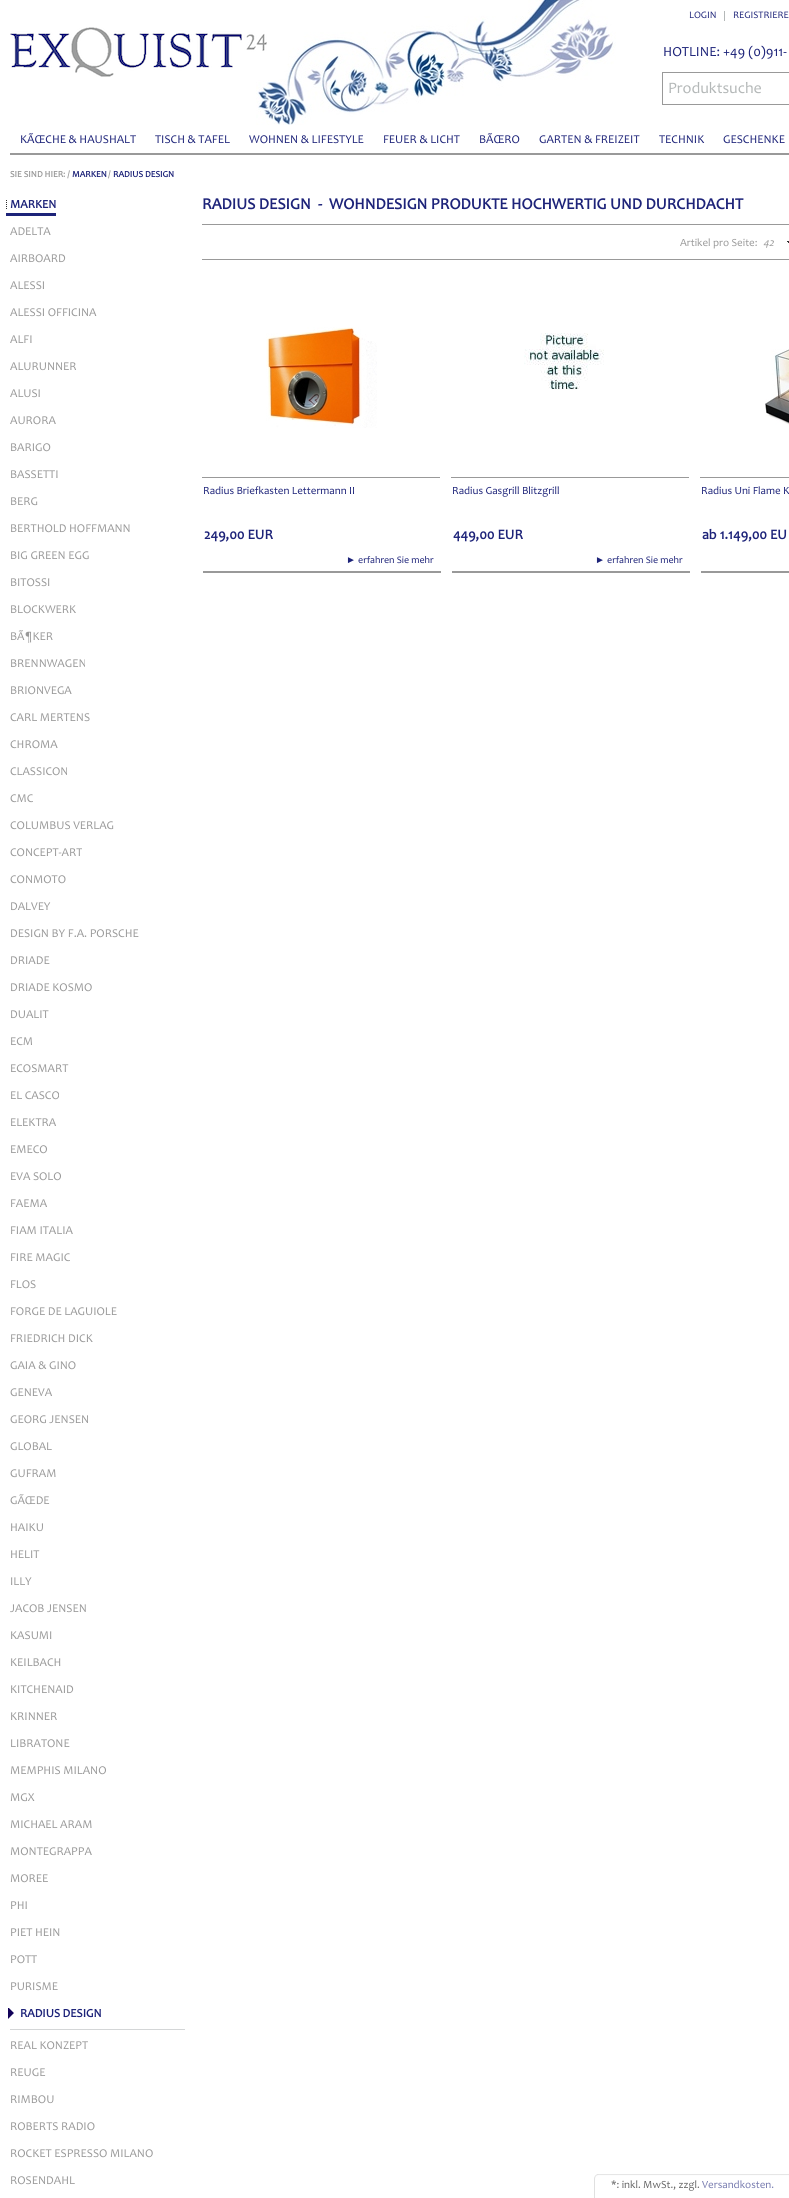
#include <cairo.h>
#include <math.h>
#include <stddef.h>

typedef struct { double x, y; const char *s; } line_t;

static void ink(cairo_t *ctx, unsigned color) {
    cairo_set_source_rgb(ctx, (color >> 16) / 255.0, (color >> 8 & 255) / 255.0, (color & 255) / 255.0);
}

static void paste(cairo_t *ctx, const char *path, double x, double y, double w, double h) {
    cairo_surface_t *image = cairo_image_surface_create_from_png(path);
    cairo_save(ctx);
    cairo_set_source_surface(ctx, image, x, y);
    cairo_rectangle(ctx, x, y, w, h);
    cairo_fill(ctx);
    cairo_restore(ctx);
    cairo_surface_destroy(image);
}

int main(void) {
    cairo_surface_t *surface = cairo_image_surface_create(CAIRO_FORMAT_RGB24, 789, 2198);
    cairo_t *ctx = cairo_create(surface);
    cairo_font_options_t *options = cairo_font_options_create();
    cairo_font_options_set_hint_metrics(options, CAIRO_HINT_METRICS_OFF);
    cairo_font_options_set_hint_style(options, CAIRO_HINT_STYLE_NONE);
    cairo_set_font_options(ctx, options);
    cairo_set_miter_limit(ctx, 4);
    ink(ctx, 0xFFFFFF);
    cairo_paint(ctx);
    paste(ctx, "media/1.png", 256, 0, 360, 125);
    ink(ctx, 0xB4B8B8);
    cairo_rectangle(ctx, 724, 11, 1, 10);
    cairo_fill(ctx);
    cairo_select_font_face(ctx, "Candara", CAIRO_FONT_SLANT_NORMAL, CAIRO_FONT_WEIGHT_NORMAL);
    cairo_set_font_size(ctx, 10);
    ink(ctx, 0x1D2379);
    cairo_move_to(ctx, 689, 18);
    cairo_show_text(ctx, "LOGIN");
    cairo_move_to(ctx, 733, 18);
    cairo_show_text(ctx, "REGISTRIERE");
    paste(ctx, "media/2.png", 10, 27, 257, 50);
    cairo_set_font_size(ctx, 14);
    cairo_move_to(ctx, 663, 56);
    cairo_show_text(ctx, "HOTLINE: +49 (0)911-");
    cairo_rectangle(ctx, 662.5, 72.5, 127, 32);
    ink(ctx, 0x999999);
    cairo_set_line_width(ctx, 1);
    cairo_stroke(ctx);
    cairo_set_font_size(ctx, 16);
    ink(ctx, 0xB4B8B8);
    cairo_move_to(ctx, 668, 93);
    cairo_show_text(ctx, "Produktsuche");
    ink(ctx, 0x999999);
    cairo_rectangle(ctx, 10, 153, 779, 2);
    cairo_fill(ctx);
    cairo_set_font_size(ctx, 12);
    ink(ctx, 0x1D2379);
    {
        static const line_t items[] = {
            {20, 143, "KÃŒCHE & HAUSHALT"},
            {155, 143, "TISCH & TAFEL"},
            {249, 143, "WOHNEN & LIFESTYLE"},
            {383, 143, "FEUER & LICHT"},
            {479, 143, "BÃŒRO"},
            {539, 143, "GARTEN & FREIZEIT"},
            {659, 143, "TECHNIK"},
            {723, 143, "GESCHENKE"},
        };
        for (size_t i = 0; i < sizeof items / sizeof *items; i++) {
            cairo_move_to(ctx, items[i].x, items[i].y);
            cairo_show_text(ctx, items[i].s);
        }
    }
    cairo_select_font_face(ctx, "Candara", CAIRO_FONT_SLANT_NORMAL, CAIRO_FONT_WEIGHT_BOLD);
    cairo_set_font_size(ctx, 9);
    ink(ctx, 0x999999);
    cairo_move_to(ctx, 10, 177);
    cairo_show_text(ctx, "SIE SIND HIER: /");
    ink(ctx, 0x1D2379);
    cairo_move_to(ctx, 72, 177);
    cairo_show_text(ctx, "MARKEN");
    ink(ctx, 0x999999);
    cairo_move_to(ctx, 108, 177);
    cairo_show_text(ctx, "/");
    ink(ctx, 0x1D2379);
    cairo_move_to(ctx, 113, 177);
    cairo_show_text(ctx, "RADIUS DESIGN");
    paste(ctx, "media/3.png", 6, 200, 1, 9);
    cairo_rectangle(ctx, 6, 213, 50, 3);
    cairo_fill(ctx);
    cairo_set_font_size(ctx, 12);
    cairo_move_to(ctx, 10, 208);
    cairo_show_text(ctx, "MARKEN");
    cairo_select_font_face(ctx, "Candara", CAIRO_FONT_SLANT_NORMAL, CAIRO_FONT_WEIGHT_NORMAL);
    ink(ctx, 0x999999);
    {
        static const line_t items[] = {
            {10, 235, "ADELTA"},
            {10, 262, "AIRBOARD"},
            {10, 289, "ALESSI"},
            {10, 316, "ALESSI OFFICINA"},
            {10, 343, "ALFI"},
            {10, 370, "ALURUNNER"},
            {10, 397, "ALUSI"},
            {10, 424, "AURORA"},
            {10, 451, "BARIGO"},
            {10, 478, "BASSETTI"},
            {10, 505, "BERG"},
            {10, 532, "BERTHOLD HOFFMANN"},
            {10, 559, "BIG GREEN EGG"},
            {10, 586, "BITOSSI"},
            {10, 613, "BLOCKWERK"},
            {10, 640, "BÃ¶KER"},
            {10, 667, "BRENNWAGEN"},
            {10, 694, "BRIONVEGA"},
            {10, 721, "CARL MERTENS"},
            {10, 748, "CHROMA"},
            {10, 775, "CLASSICON"},
            {10, 802, "CMC"},
            {10, 829, "COLUMBUS VERLAG"},
            {10, 856, "CONCEPT-ART"},
            {10, 883, "CONMOTO"},
            {10, 910, "DALVEY"},
            {10, 937, "DESIGN BY F.A. PORSCHE"},
            {10, 964, "DRIADE"},
            {10, 991, "DRIADE KOSMO"},
            {10, 1018, "DUALIT"},
            {10, 1045, "ECM"},
            {10, 1072, "ECOSMART"},
            {10, 1099, "EL CASCO"},
            {10, 1126, "ELEKTRA"},
            {10, 1153, "EMECO"},
            {10, 1180, "EVA SOLO"},
            {10, 1207, "FAEMA"},
            {10, 1234, "FIAM ITALIA"},
            {10, 1261, "FIRE MAGIC"},
            {10, 1288, "FLOS"},
            {10, 1315, "FORGE DE LAGUIOLE"},
            {10, 1342, "FRIEDRICH DICK"},
            {10, 1369, "GAIA & GINO"},
            {10, 1396, "GENEVA"},
            {10, 1423, "GEORG JENSEN"},
            {10, 1450, "GLOBAL"},
            {10, 1477, "GUFRAM"},
            {10, 1504, "GÃŒDE"},
            {10, 1531, "HAIKU"},
            {10, 1558, "HELIT"},
            {10, 1585, "ILLY"},
            {10, 1612, "JACOB JENSEN"},
            {10, 1639, "KASUMI"},
            {10, 1666, "KEILBACH"},
            {10, 1693, "KITCHENAID"},
            {10, 1720, "KRINNER"},
            {10, 1747, "LIBRATONE"},
            {10, 1774, "MEMPHIS MILANO"},
            {10, 1801, "MGX"},
            {10, 1828, "MICHAEL ARAM"},
            {10, 1855, "MONTEGRAPPA"},
            {10, 1882, "MOREE"},
            {10, 1909, "PHI"},
            {10, 1936, "PIET HEIN"},
            {10, 1963, "POTT"},
            {10, 1990, "PURISME"},
        };
        for (size_t i = 0; i < sizeof items / sizeof *items; i++) {
            cairo_move_to(ctx, items[i].x, items[i].y);
            cairo_show_text(ctx, items[i].s);
        }
    }
    ink(ctx, 0xD4D6D7);
    cairo_rectangle(ctx, 10, 2029, 175, 1);
    cairo_fill(ctx);
    paste(ctx, "media/4.png", 8, 2008, 6, 11);
    cairo_select_font_face(ctx, "Candara", CAIRO_FONT_SLANT_NORMAL, CAIRO_FONT_WEIGHT_BOLD);
    ink(ctx, 0x1D2379);
    cairo_move_to(ctx, 20, 2017);
    cairo_show_text(ctx, "RADIUS DESIGN");
    cairo_select_font_face(ctx, "Candara", CAIRO_FONT_SLANT_NORMAL, CAIRO_FONT_WEIGHT_NORMAL);
    ink(ctx, 0x999999);
    {
        static const line_t items[] = {
            {10, 2049, "REAL KONZEPT"},
            {10, 2076, "REUGE"},
            {10, 2103, "RIMBOU"},
            {10, 2130, "ROBERTS RADIO"},
            {10, 2157, "ROCKET ESPRESSO MILANO"},
            {10, 2184, "ROSENDAHL"},
        };
        for (size_t i = 0; i < sizeof items / sizeof *items; i++) {
            cairo_move_to(ctx, items[i].x, items[i].y);
            cairo_show_text(ctx, items[i].s);
        }
    }
    cairo_rectangle(ctx, 202, 224, 587, 1);
    cairo_fill(ctx);
    cairo_select_font_face(ctx, "Candara", CAIRO_FONT_SLANT_NORMAL, CAIRO_FONT_WEIGHT_BOLD);
    cairo_set_font_size(ctx, 16);
    ink(ctx, 0x1D2379);
    cairo_move_to(ctx, 202, 209);
    cairo_show_text(ctx, "RADIUS DESIGN");
    cairo_move_to(ctx, 318, 209);
    cairo_show_text(ctx, "-  WOHNDESIGN PRODUKTE HOCHWERTIG UND DURCHDACHT");
    ink(ctx, 0x999999);
    cairo_rectangle(ctx, 202, 259, 587, 1);
    cairo_fill(ctx);
    paste(ctx, "media/5.png", 787, 241, 2, 2);
    cairo_select_font_face(ctx, "Candara", CAIRO_FONT_SLANT_NORMAL, CAIRO_FONT_WEIGHT_NORMAL);
    cairo_set_font_size(ctx, 11);
    cairo_move_to(ctx, 680, 246);
    cairo_show_text(ctx, "Artikel pro Seite:");
    cairo_select_font_face(ctx, "Candara", CAIRO_FONT_SLANT_ITALIC, CAIRO_FONT_WEIGHT_NORMAL);
    cairo_move_to(ctx, 763, 246);
    cairo_show_text(ctx, "42");
    cairo_rectangle(ctx, 202, 477, 238, 1);
    cairo_fill(ctx);
    paste(ctx, "media/6.png", 266, 327, 111, 101);
    cairo_select_font_face(ctx, "Candara", CAIRO_FONT_SLANT_NORMAL, CAIRO_FONT_WEIGHT_NORMAL);
    ink(ctx, 0x1D2379);
    cairo_move_to(ctx, 203, 494);
    cairo_show_text(ctx, "Radius Briefkasten Lettermann II");
    ink(ctx, 0x999999);
    cairo_rectangle(ctx, 203, 571, 238, 2);
    cairo_fill(ctx);
    cairo_select_font_face(ctx, "Liberation Sans", CAIRO_FONT_SLANT_NORMAL, CAIRO_FONT_WEIGHT_NORMAL);
    cairo_set_font_size(ctx, 10);
    ink(ctx, 0x1D2379);
    cairo_move_to(ctx, 346, 563);
    cairo_show_text(ctx, "►");
    cairo_select_font_face(ctx, "Candara", CAIRO_FONT_SLANT_NORMAL, CAIRO_FONT_WEIGHT_NORMAL);
    cairo_move_to(ctx, 358, 563);
    cairo_show_text(ctx, "erfahren Sie mehr");
    cairo_select_font_face(ctx, "Candara", CAIRO_FONT_SLANT_NORMAL, CAIRO_FONT_WEIGHT_BOLD);
    cairo_set_font_size(ctx, 14);
    cairo_move_to(ctx, 204, 539);
    cairo_show_text(ctx, "249,00 EUR");
    ink(ctx, 0x999999);
    cairo_rectangle(ctx, 451, 477, 238, 1);
    cairo_fill(ctx);
    paste(ctx, "media/7.png", 524, 333, 80, 57);
    cairo_select_font_face(ctx, "Candara", CAIRO_FONT_SLANT_NORMAL, CAIRO_FONT_WEIGHT_NORMAL);
    cairo_set_font_size(ctx, 11);
    ink(ctx, 0x1D2379);
    cairo_move_to(ctx, 452, 494);
    cairo_show_text(ctx, "Radius Gasgrill Blitzgrill");
    ink(ctx, 0x999999);
    cairo_rectangle(ctx, 452, 571, 238, 2);
    cairo_fill(ctx);
    cairo_select_font_face(ctx, "Liberation Sans", CAIRO_FONT_SLANT_NORMAL, CAIRO_FONT_WEIGHT_NORMAL);
    cairo_set_font_size(ctx, 10);
    ink(ctx, 0x1D2379);
    cairo_move_to(ctx, 595, 563);
    cairo_show_text(ctx, "►");
    cairo_select_font_face(ctx, "Candara", CAIRO_FONT_SLANT_NORMAL, CAIRO_FONT_WEIGHT_NORMAL);
    cairo_move_to(ctx, 607, 563);
    cairo_show_text(ctx, "erfahren Sie mehr");
    cairo_select_font_face(ctx, "Candara", CAIRO_FONT_SLANT_NORMAL, CAIRO_FONT_WEIGHT_BOLD);
    cairo_set_font_size(ctx, 14);
    cairo_move_to(ctx, 453, 539);
    cairo_show_text(ctx, "449,00 EUR");
    ink(ctx, 0x999999);
    cairo_rectangle(ctx, 700, 477, 89, 1);
    cairo_fill(ctx);
    paste(ctx, "media/8.png", 765, 349, 24, 76);
    cairo_select_font_face(ctx, "Candara", CAIRO_FONT_SLANT_NORMAL, CAIRO_FONT_WEIGHT_NORMAL);
    cairo_set_font_size(ctx, 11);
    ink(ctx, 0x1D2379);
    cairo_move_to(ctx, 701, 494);
    cairo_show_text(ctx, "Radius Uni Flame K");
    ink(ctx, 0x999999);
    cairo_rectangle(ctx, 701, 571, 88, 2);
    cairo_fill(ctx);
    cairo_select_font_face(ctx, "Candara", CAIRO_FONT_SLANT_NORMAL, CAIRO_FONT_WEIGHT_BOLD);
    cairo_set_font_size(ctx, 14);
    ink(ctx, 0x1D2379);
    cairo_move_to(ctx, 702, 539);
    cairo_show_text(ctx, "ab 1.149,00 EU");
    paste(ctx, "media/9.png", 594, 2174, 195, 24);
    cairo_select_font_face(ctx, "Candara", CAIRO_FONT_SLANT_NORMAL, CAIRO_FONT_WEIGHT_NORMAL);
    cairo_set_font_size(ctx, 11);
    ink(ctx, 0x666666);
    cairo_move_to(ctx, 611, 2188);
    cairo_show_text(ctx, "*: inkl. MwSt., zzgl.");
    ink(ctx, 0x777BAF);
    cairo_move_to(ctx, 702, 2188);
    cairo_show_text(ctx, "Versandkosten.");
    cairo_surface_write_to_png(surface, "image.png");
    cairo_font_options_destroy(options);
    cairo_destroy(ctx);
    cairo_surface_destroy(surface);
    return 0;
}
